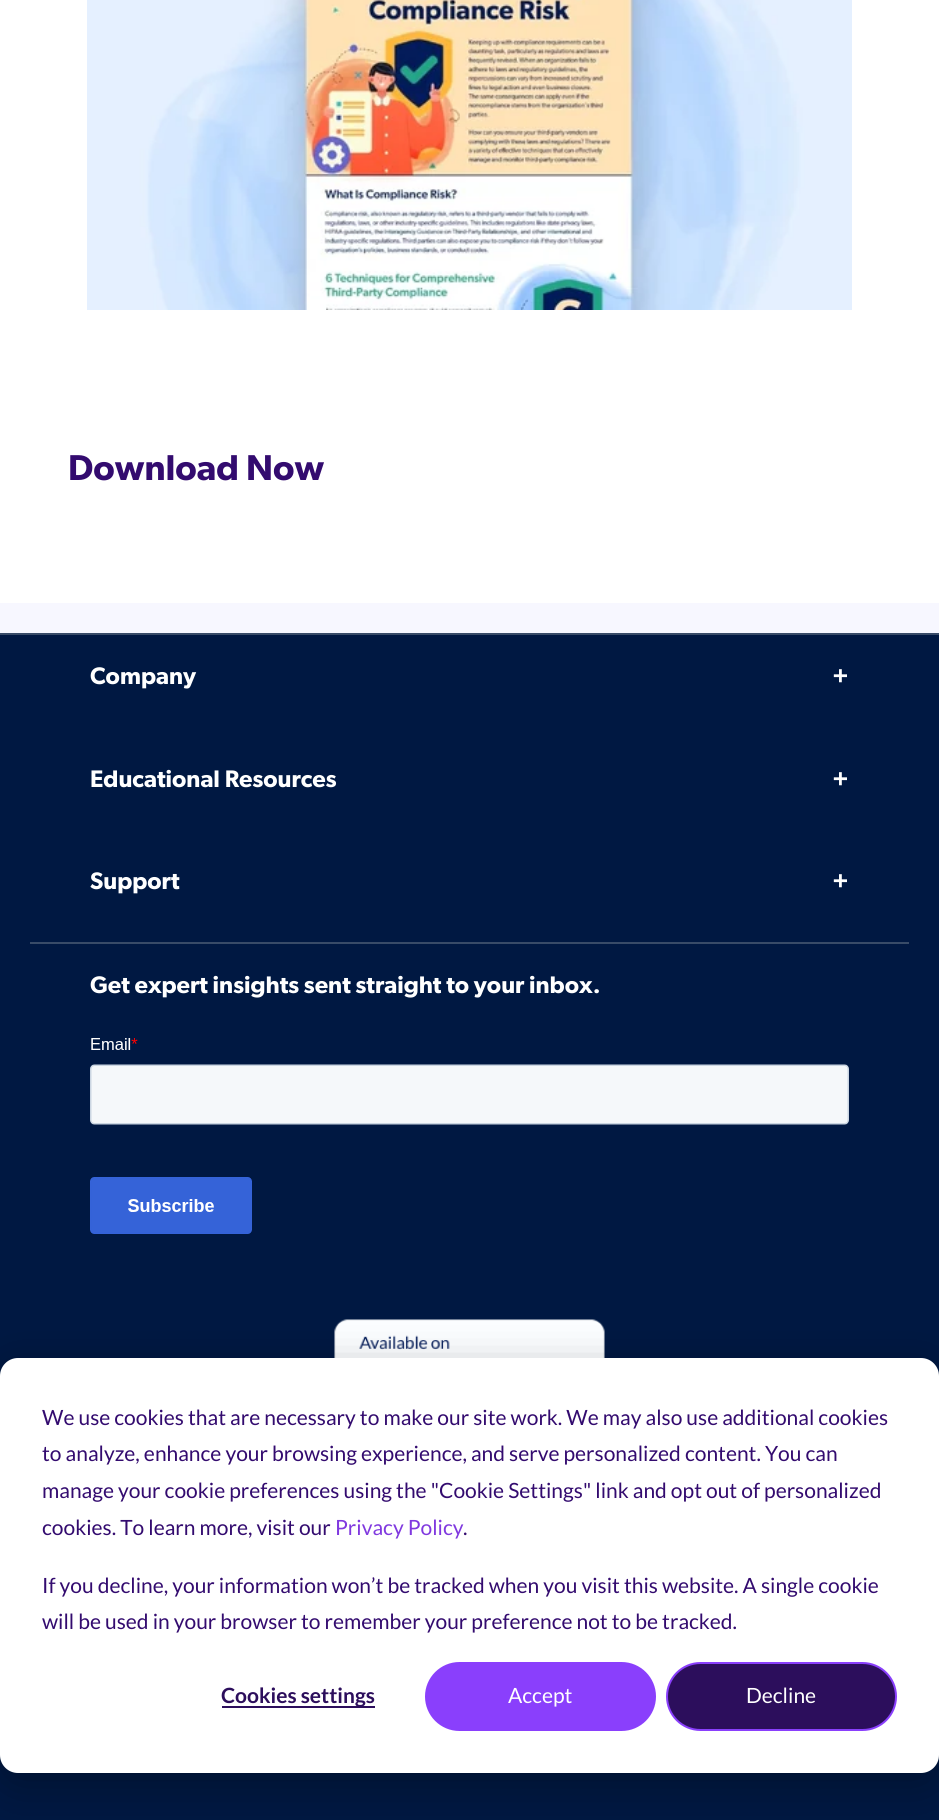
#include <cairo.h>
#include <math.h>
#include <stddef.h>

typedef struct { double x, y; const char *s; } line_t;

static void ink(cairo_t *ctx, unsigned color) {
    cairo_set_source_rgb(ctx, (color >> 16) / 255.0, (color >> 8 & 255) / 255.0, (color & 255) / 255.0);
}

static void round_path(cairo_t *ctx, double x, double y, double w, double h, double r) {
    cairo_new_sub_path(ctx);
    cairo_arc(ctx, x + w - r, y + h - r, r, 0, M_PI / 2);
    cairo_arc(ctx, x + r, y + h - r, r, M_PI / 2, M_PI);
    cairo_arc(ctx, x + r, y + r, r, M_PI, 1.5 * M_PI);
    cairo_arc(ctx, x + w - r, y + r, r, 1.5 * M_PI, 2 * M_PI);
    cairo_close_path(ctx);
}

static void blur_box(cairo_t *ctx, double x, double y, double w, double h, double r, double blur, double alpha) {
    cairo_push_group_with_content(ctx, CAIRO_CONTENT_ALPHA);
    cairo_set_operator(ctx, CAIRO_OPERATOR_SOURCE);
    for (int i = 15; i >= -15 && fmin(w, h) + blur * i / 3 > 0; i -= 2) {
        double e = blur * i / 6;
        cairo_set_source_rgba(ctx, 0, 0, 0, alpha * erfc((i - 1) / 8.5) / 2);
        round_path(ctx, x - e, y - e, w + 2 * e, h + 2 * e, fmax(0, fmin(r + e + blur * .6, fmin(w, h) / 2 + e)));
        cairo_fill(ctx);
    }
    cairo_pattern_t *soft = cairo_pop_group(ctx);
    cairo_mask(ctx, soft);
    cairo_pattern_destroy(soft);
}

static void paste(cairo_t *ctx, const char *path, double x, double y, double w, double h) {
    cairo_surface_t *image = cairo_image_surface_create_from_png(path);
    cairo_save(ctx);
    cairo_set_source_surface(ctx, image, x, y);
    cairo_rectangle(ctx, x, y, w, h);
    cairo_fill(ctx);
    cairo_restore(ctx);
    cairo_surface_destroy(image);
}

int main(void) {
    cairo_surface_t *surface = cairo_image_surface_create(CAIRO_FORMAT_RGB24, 939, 1820);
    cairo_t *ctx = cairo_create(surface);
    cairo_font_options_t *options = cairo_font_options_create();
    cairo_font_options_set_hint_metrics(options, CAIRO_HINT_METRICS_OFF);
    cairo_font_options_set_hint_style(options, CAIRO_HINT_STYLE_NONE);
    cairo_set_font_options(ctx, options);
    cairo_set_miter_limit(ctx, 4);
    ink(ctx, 0x001842);
    cairo_paint(ctx);
    ink(ctx, 0xF7F7FF);
    cairo_rectangle(ctx, 0, 603, 939, 30);
    cairo_fill(ctx);
    ink(ctx, 0xFFFFFF);
    cairo_rectangle(ctx, 0, 0, 939, 603);
    cairo_fill(ctx);
    paste(ctx, "media/1.png", 87, 0, 765, 310);
    cairo_select_font_face(ctx, "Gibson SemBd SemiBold", CAIRO_FONT_SLANT_NORMAL, CAIRO_FONT_WEIGHT_NORMAL);
    cairo_set_font_size(ctx, 36);
    ink(ctx, 0x330B6F);
    cairo_move_to(ctx, 68, 480);
    cairo_show_text(ctx, "Download Now");
    ink(ctx, 0x384B68);
    cairo_rectangle(ctx, 0, 633, 939, 2);
    cairo_fill(ctx);
    cairo_set_font_size(ctx, 24);
    ink(ctx, 0xFFFFFF);
    {
        static const line_t items[] = {
            {90, 684, "Company"},
            {832, 684, "+"},
            {90, 787, "Educational Resources"},
            {832, 787, "+"},
        };
        for (size_t i = 0; i < sizeof items / sizeof *items; i++) {
            cairo_move_to(ctx, items[i].x, items[i].y);
            cairo_show_text(ctx, items[i].s);
        }
    }
    ink(ctx, 0x384B68);
    cairo_rectangle(ctx, 30, 942, 879, 2);
    cairo_fill(ctx);
    ink(ctx, 0xFFFFFF);
    {
        static const line_t items[] = {
            {90, 889, "Support"},
            {832, 889, "+"},
            {90, 993, "Get expert insights sent straight to your inbox."},
        };
        for (size_t i = 0; i < sizeof items / sizeof *items; i++) {
            cairo_move_to(ctx, items[i].x, items[i].y);
            cairo_show_text(ctx, items[i].s);
        }
    }
    paste(ctx, "media/2.png", 90, 1038, 759, 196);
    paste(ctx, "media/3.png", 334, 1319, 271, 39);
    ink(ctx, 0x000000);
    blur_box(ctx, 0, 1370, 939, 415, 18, 21, 0.28);
    ink(ctx, 0xFFFFFF);
    round_path(ctx, 0, 1358, 939, 415, 18);
    cairo_fill(ctx);
    cairo_select_font_face(ctx, "Lato", CAIRO_FONT_SLANT_NORMAL, CAIRO_FONT_WEIGHT_NORMAL);
    cairo_set_font_size(ctx, 21);
    ink(ctx, 0x330B6F);
    {
        static const line_t items[] = {
            {42, 1425, "We use cookies that are necessary to make our site work. We may also use additional cookies"},
            {42, 1461, "to analyze, enhance your browsing experience, and serve personalized content. You can"},
            {42, 1498, "manage your cookie preferences using the \"Cookie Settings\" link and opt out of personalized"},
            {42, 1535, "cookies. To learn more, visit our"},
        };
        for (size_t i = 0; i < sizeof items / sizeof *items; i++) {
            cairo_move_to(ctx, items[i].x, items[i].y);
            cairo_show_text(ctx, items[i].s);
        }
    }
    ink(ctx, 0x8039DF);
    cairo_move_to(ctx, 335, 1535);
    cairo_show_text(ctx, "Privacy Policy");
    ink(ctx, 0x330B6F);
    {
        static const line_t items[] = {
            {463, 1535, "."},
            {42, 1593, "If you decline, your information won’t be tracked when you visit this website. A single cookie"},
            {42, 1629, "will be used in your browser to remember your preference not to be tracked."},
        };
        for (size_t i = 0; i < sizeof items / sizeof *items; i++) {
            cairo_move_to(ctx, items[i].x, items[i].y);
            cairo_show_text(ctx, items[i].s);
        }
    }
    ink(ctx, 0x2C0E5C);
    cairo_rectangle(ctx, 222, 1706, 153, 2);
    cairo_fill(ctx);
    cairo_select_font_face(ctx, "Lato", CAIRO_FONT_SLANT_NORMAL, CAIRO_FONT_WEIGHT_BOLD);
    cairo_move_to(ctx, 221, 1703);
    cairo_show_text(ctx, "Cookies settings");
    ink(ctx, 0x8A3FFC);
    round_path(ctx, 426, 1663, 229, 67, 33.5);
    cairo_fill_preserve(ctx);
    cairo_stroke(ctx);
    cairo_select_font_face(ctx, "Lato", CAIRO_FONT_SLANT_NORMAL, CAIRO_FONT_WEIGHT_NORMAL);
    ink(ctx, 0xFFFFFF);
    cairo_move_to(ctx, 508, 1703);
    cairo_show_text(ctx, "Accept");
    ink(ctx, 0x2C0E5C);
    round_path(ctx, 667, 1663, 229, 67, 33.5);
    cairo_fill_preserve(ctx);
    ink(ctx, 0x8A3FFC);
    cairo_stroke(ctx);
    ink(ctx, 0xFFFFFF);
    cairo_move_to(ctx, 746, 1703);
    cairo_show_text(ctx, "Decline");
    cairo_surface_write_to_png(surface, "image.png");
    cairo_font_options_destroy(options);
    cairo_destroy(ctx);
    cairo_surface_destroy(surface);
    return 0;
}
